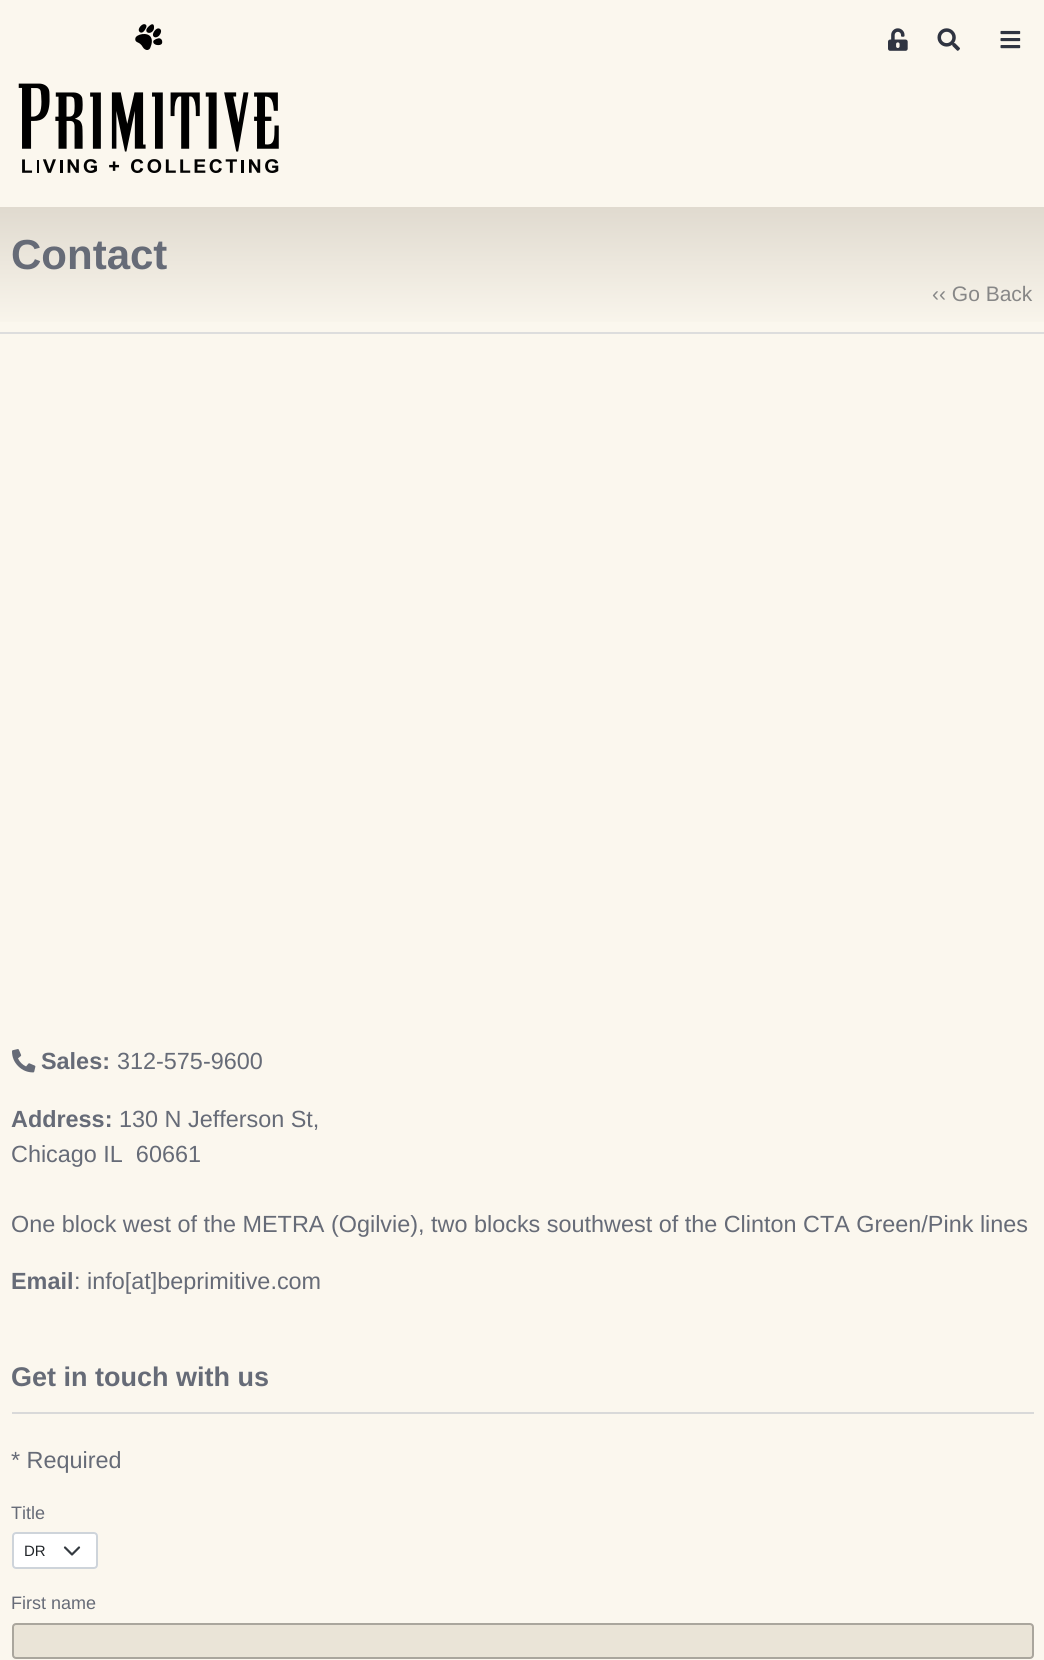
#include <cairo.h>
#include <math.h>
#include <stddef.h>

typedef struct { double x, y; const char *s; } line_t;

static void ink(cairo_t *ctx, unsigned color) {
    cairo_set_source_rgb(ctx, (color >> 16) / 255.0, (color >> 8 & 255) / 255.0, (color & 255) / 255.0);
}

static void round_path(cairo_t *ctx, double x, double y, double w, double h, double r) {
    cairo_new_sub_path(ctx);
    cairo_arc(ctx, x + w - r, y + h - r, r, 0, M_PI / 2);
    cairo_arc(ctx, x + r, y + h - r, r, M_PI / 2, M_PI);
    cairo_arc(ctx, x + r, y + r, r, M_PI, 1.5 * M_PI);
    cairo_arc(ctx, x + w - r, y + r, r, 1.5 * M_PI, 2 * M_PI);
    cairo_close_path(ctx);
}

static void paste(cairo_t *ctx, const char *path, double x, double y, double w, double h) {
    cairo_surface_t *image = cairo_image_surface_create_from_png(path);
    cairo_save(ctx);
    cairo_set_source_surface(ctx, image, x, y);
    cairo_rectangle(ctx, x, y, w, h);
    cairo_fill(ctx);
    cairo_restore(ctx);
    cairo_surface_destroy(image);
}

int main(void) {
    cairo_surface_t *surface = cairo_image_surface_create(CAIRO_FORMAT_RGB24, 1044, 1660);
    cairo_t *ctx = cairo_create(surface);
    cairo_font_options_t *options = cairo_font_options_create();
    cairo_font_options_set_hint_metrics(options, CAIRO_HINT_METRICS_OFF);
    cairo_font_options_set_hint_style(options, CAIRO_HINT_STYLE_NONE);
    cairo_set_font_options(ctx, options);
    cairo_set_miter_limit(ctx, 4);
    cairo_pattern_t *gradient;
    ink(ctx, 0xFBF7EE);
    cairo_paint(ctx);
    paste(ctx, "media/1.png", 18, 24, 261, 149);
    paste(ctx, "media/2.png", 888, 28, 20, 23);
    paste(ctx, "media/3.png", 937, 28, 23, 23);
    paste(ctx, "media/4.png", 1000, 30, 21, 19);
    gradient = cairo_pattern_create_linear(522, 332, 522, 207);
    cairo_pattern_add_color_stop_rgba(gradient, 0, 0.984, 0.969, 0.933, 1);
    cairo_pattern_add_color_stop_rgba(gradient, 1, 0.878, 0.855, 0.812, 1);
    cairo_set_source(ctx, gradient);
    cairo_pattern_destroy(gradient);
    cairo_rectangle(ctx, 0, 207, 1044, 115);
    cairo_fill(ctx);
    ink(ctx, 0xDDDDDD);
    cairo_rectangle(ctx, 0, 332, 1044, 2);
    cairo_fill(ctx);
    cairo_select_font_face(ctx, "Liberation Sans", CAIRO_FONT_SLANT_NORMAL, CAIRO_FONT_WEIGHT_BOLD);
    cairo_set_font_size(ctx, 42);
    ink(ctx, 0x666B77);
    cairo_move_to(ctx, 11, 269);
    cairo_show_text(ctx, "Contact");
    cairo_select_font_face(ctx, "Liberation Sans", CAIRO_FONT_SLANT_NORMAL, CAIRO_FONT_WEIGHT_NORMAL);
    cairo_set_font_size(ctx, 21);
    ink(ctx, 0x878787);
    cairo_move_to(ctx, 932, 301);
    cairo_show_text(ctx, "‹‹ Go Back");
    paste(ctx, "media/5.png", 12, 1049, 24, 24);
    cairo_select_font_face(ctx, "Liberation Sans", CAIRO_FONT_SLANT_NORMAL, CAIRO_FONT_WEIGHT_BOLD);
    cairo_set_font_size(ctx, 23.4);
    ink(ctx, 0x666B77);
    cairo_move_to(ctx, 41, 1069);
    cairo_show_text(ctx, "Sales:");
    cairo_select_font_face(ctx, "Liberation Sans", CAIRO_FONT_SLANT_NORMAL, CAIRO_FONT_WEIGHT_NORMAL);
    cairo_move_to(ctx, 117, 1069);
    cairo_show_text(ctx, "312-575-9600");
    cairo_select_font_face(ctx, "Liberation Sans", CAIRO_FONT_SLANT_NORMAL, CAIRO_FONT_WEIGHT_BOLD);
    cairo_move_to(ctx, 11, 1127);
    cairo_show_text(ctx, "Address:");
    cairo_select_font_face(ctx, "Liberation Sans", CAIRO_FONT_SLANT_NORMAL, CAIRO_FONT_WEIGHT_NORMAL);
    {
        static const line_t items[] = {
            {119, 1127, "130 N Jefferson St,"},
            {11, 1162, "Chicago IL  60661"},
            {11, 1232, "One block west of the METRA (Ogilvie), two blocks southwest of the Clinton CTA Green/Pink lines"},
        };
        for (size_t i = 0; i < sizeof items / sizeof *items; i++) {
            cairo_move_to(ctx, items[i].x, items[i].y);
            cairo_show_text(ctx, items[i].s);
        }
    }
    cairo_select_font_face(ctx, "Liberation Sans", CAIRO_FONT_SLANT_NORMAL, CAIRO_FONT_WEIGHT_BOLD);
    cairo_move_to(ctx, 11, 1289);
    cairo_show_text(ctx, "Email");
    cairo_select_font_face(ctx, "Liberation Sans", CAIRO_FONT_SLANT_NORMAL, CAIRO_FONT_WEIGHT_NORMAL);
    cairo_move_to(ctx, 74, 1289);
    cairo_show_text(ctx, ": info[at]beprimitive.com");
    ink(ctx, 0xD9D9D9);
    cairo_rectangle(ctx, 12, 1412, 1022, 2);
    cairo_fill(ctx);
    cairo_select_font_face(ctx, "Liberation Sans", CAIRO_FONT_SLANT_NORMAL, CAIRO_FONT_WEIGHT_BOLD);
    cairo_set_font_size(ctx, 27);
    ink(ctx, 0x666B77);
    cairo_move_to(ctx, 11, 1386);
    cairo_show_text(ctx, "Get in touch with us");
    cairo_select_font_face(ctx, "Liberation Sans", CAIRO_FONT_SLANT_NORMAL, CAIRO_FONT_WEIGHT_NORMAL);
    cairo_set_font_size(ctx, 23.4);
    cairo_move_to(ctx, 11, 1468);
    cairo_show_text(ctx, "* Required");
    cairo_set_font_size(ctx, 18);
    cairo_move_to(ctx, 11, 1519);
    cairo_show_text(ctx, "Title");
    ink(ctx, 0xFFFFFF);
    round_path(ctx, 12, 1532, 86, 37, 4);
    cairo_fill(ctx);
    cairo_new_path(ctx);
    cairo_move_to(ctx, 65, 1547.5);
    cairo_line_to(ctx, 72, 1554.5);
    cairo_line_to(ctx, 79, 1547.5);
    ink(ctx, 0x343A40);
    cairo_set_line_width(ctx, 2.2);
    cairo_set_line_cap(ctx, CAIRO_LINE_CAP_ROUND);
    cairo_set_line_join(ctx, CAIRO_LINE_JOIN_ROUND);
    cairo_stroke(ctx);
    round_path(ctx, 13, 1533, 84, 35, 3);
    ink(ctx, 0xCED4DA);
    cairo_set_line_width(ctx, 2);
    cairo_set_line_cap(ctx, CAIRO_LINE_CAP_BUTT);
    cairo_set_line_join(ctx, CAIRO_LINE_JOIN_MITER);
    cairo_stroke(ctx);
    cairo_set_font_size(ctx, 15);
    ink(ctx, 0x212529);
    cairo_move_to(ctx, 24, 1556);
    cairo_show_text(ctx, "DR");
    cairo_set_font_size(ctx, 18);
    ink(ctx, 0x666B77);
    cairo_move_to(ctx, 11, 1609);
    cairo_show_text(ctx, "First name");
    ink(ctx, 0xEAE4D7);
    round_path(ctx, 13, 1624, 1020, 34, 3);
    cairo_fill_preserve(ctx);
    ink(ctx, 0xAAA69D);
    cairo_stroke(ctx);
    cairo_surface_write_to_png(surface, "image.png");
    cairo_font_options_destroy(options);
    cairo_destroy(ctx);
    cairo_surface_destroy(surface);
    return 0;
}
